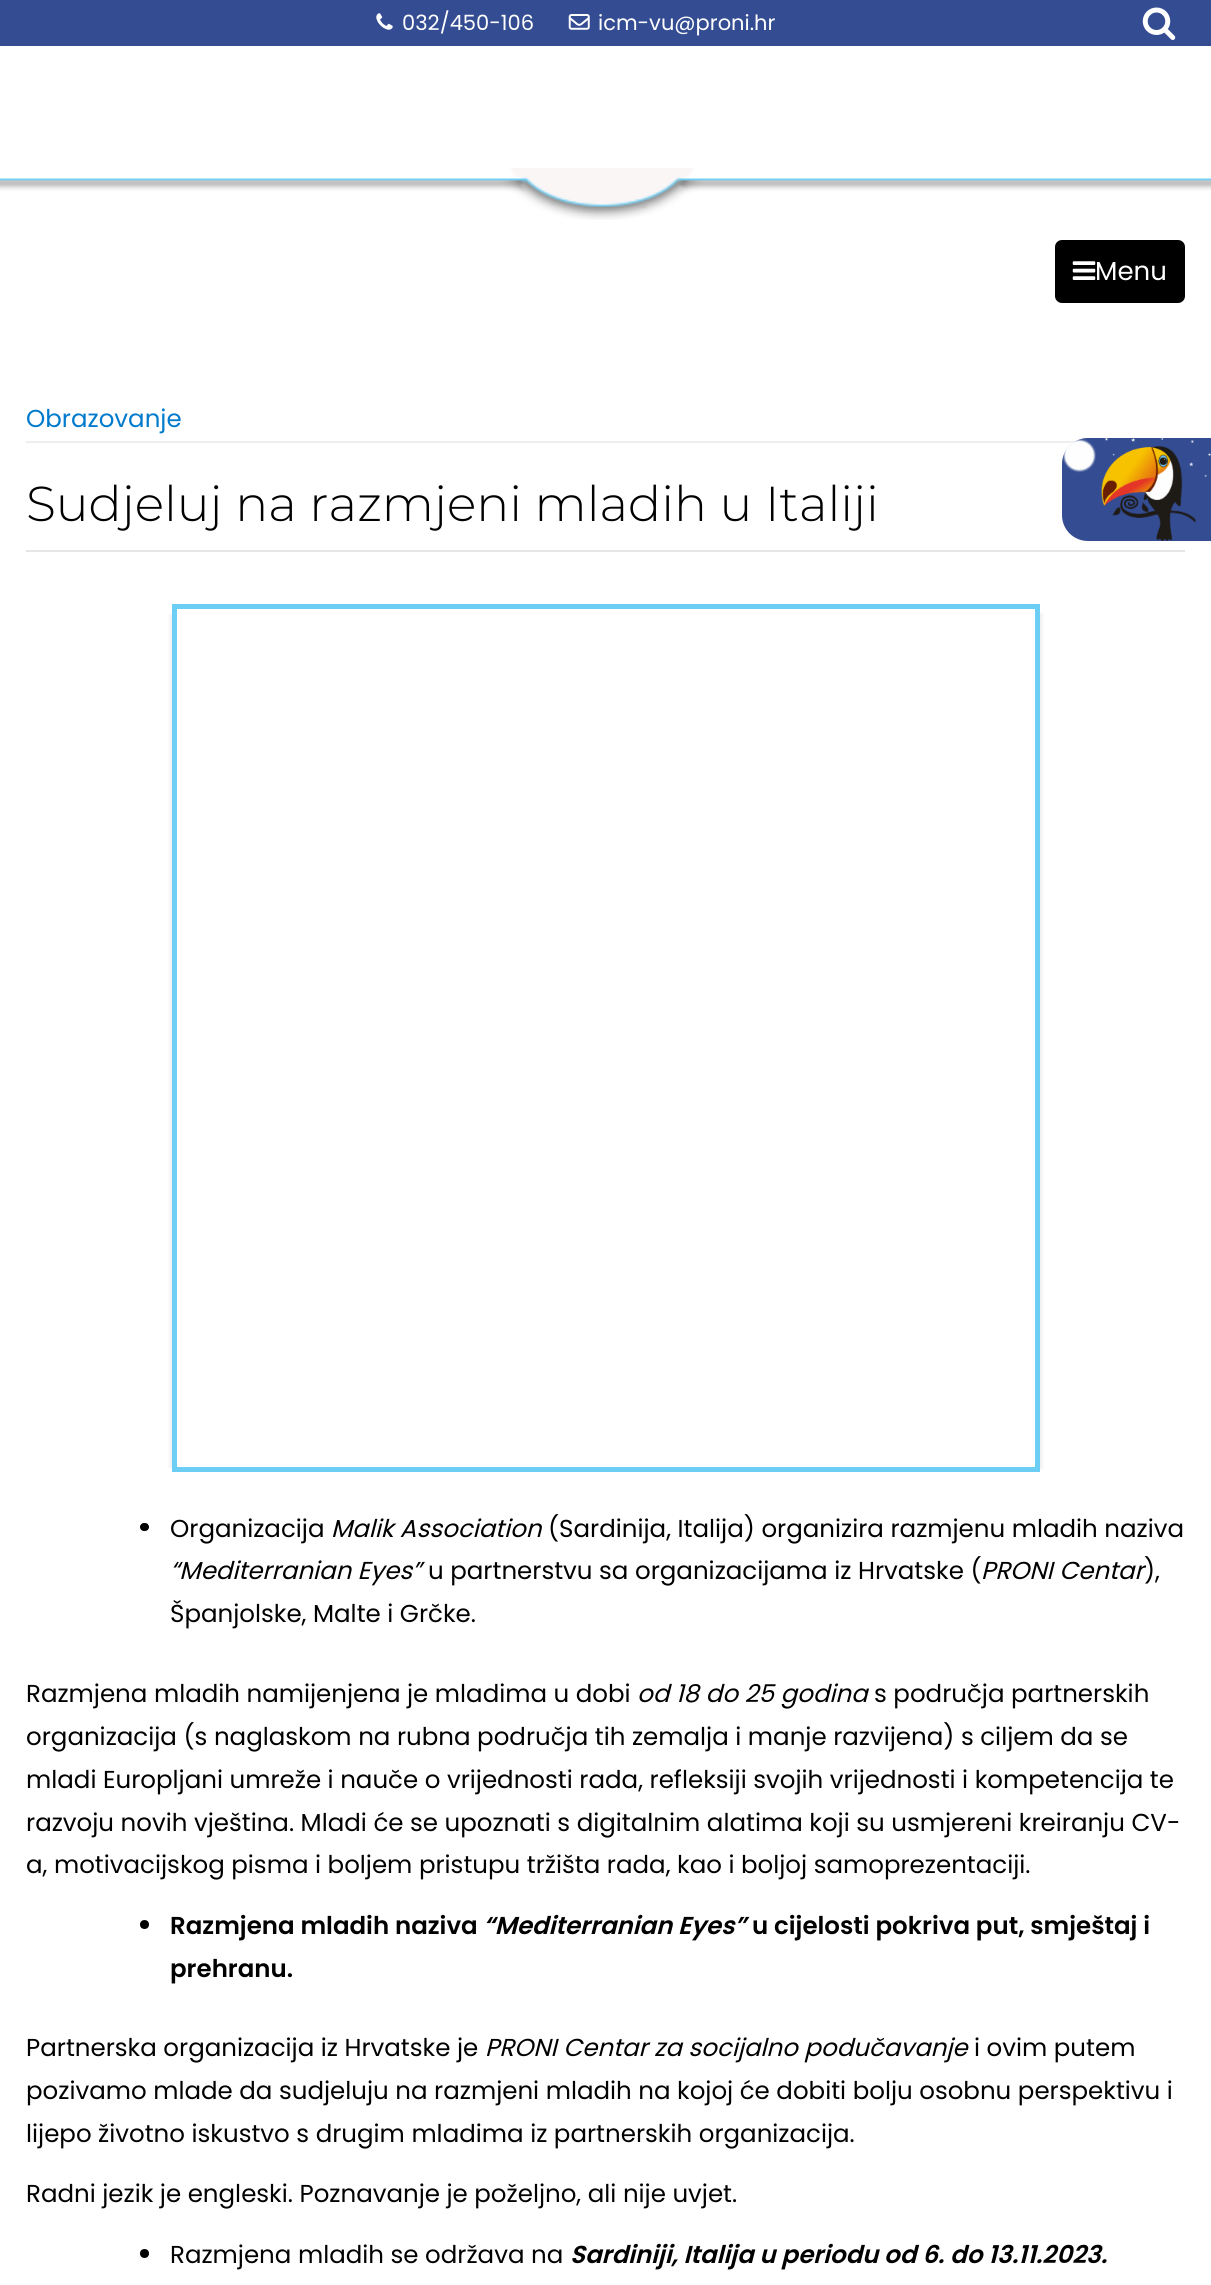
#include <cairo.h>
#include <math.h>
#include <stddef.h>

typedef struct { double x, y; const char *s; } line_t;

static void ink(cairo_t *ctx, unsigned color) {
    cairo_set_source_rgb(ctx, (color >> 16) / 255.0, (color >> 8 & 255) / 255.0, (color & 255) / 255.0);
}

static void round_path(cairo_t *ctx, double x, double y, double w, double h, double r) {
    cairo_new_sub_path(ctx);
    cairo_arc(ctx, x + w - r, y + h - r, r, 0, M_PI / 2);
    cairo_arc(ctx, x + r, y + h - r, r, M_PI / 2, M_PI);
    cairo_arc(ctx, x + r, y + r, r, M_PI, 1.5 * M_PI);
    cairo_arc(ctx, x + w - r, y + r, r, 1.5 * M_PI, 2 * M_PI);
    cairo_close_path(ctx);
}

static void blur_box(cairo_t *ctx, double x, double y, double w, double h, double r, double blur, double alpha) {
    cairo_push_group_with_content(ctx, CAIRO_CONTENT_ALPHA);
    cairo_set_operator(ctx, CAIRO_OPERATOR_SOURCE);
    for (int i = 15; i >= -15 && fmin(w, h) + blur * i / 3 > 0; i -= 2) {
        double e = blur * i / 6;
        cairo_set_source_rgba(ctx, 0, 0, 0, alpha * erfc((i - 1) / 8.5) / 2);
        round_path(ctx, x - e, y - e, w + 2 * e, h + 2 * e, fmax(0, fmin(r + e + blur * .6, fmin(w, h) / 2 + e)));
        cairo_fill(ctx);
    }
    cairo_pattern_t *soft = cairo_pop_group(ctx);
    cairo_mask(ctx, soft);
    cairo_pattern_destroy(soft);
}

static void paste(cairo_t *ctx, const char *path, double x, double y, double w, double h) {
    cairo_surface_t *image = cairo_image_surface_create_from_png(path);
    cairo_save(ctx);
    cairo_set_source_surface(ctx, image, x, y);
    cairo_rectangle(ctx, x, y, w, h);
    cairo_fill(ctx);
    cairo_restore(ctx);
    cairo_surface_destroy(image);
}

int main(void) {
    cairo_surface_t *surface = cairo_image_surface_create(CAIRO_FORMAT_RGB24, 1211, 2285);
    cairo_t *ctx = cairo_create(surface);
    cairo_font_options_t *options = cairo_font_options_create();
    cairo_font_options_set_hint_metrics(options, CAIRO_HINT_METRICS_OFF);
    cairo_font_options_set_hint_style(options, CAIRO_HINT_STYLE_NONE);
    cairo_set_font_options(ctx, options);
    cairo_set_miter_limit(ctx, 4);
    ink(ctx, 0xFFFFFF);
    cairo_paint(ctx);
    ink(ctx, 0x344D92);
    cairo_rectangle(ctx, 0, 0, 1211, 46);
    cairo_fill(ctx);
    paste(ctx, "media/1.png", 376, 13, 17, 17);
    cairo_select_font_face(ctx, "Poppins", CAIRO_FONT_SLANT_NORMAL, CAIRO_FONT_WEIGHT_NORMAL);
    cairo_set_font_size(ctx, 21);
    ink(ctx, 0xFFFFFF);
    cairo_move_to(ctx, 402, 30);
    cairo_show_text(ctx, "032/450-106");
    paste(ctx, "media/2.png", 568, 14, 22, 16);
    cairo_move_to(ctx, 598, 30);
    cairo_show_text(ctx, "icm-vu@proni.hr");
    paste(ctx, "media/3.png", 1142, 7, 34, 33);
    paste(ctx, "media/4.png", 0, 168, 1211, 52);
    ink(ctx, 0x000000);
    round_path(ctx, 1055, 240, 130, 63, 7);
    cairo_fill(ctx);
    paste(ctx, "media/5.png", 1072, 261, 24, 19);
    cairo_set_font_size(ctx, 26);
    ink(ctx, 0xFFFFFF);
    cairo_move_to(ctx, 1095, 280);
    cairo_show_text(ctx, "Menu");
    ink(ctx, 0xE5E5E5);
    cairo_rectangle(ctx, 26, 550, 1159, 2);
    cairo_fill(ctx);
    ink(ctx, 0xEEEEEE);
    cairo_rectangle(ctx, 26, 441, 1050, 2);
    cairo_fill(ctx);
    cairo_set_font_size(ctx, 24.5);
    ink(ctx, 0x007ACC);
    cairo_move_to(ctx, 26, 427);
    cairo_show_text(ctx, "Obrazovanje");
    cairo_select_font_face(ctx, "Montserrat Light", CAIRO_FONT_SLANT_NORMAL, CAIRO_FONT_WEIGHT_NORMAL);
    cairo_set_font_size(ctx, 49);
    ink(ctx, 0x000000);
    cairo_move_to(ctx, 26, 521);
    cairo_show_text(ctx, "Sudjeluj na razmjeni mladih u Italiji");
    cairo_save(ctx);
    cairo_rectangle(ctx, 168, 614, 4, 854);
    cairo_clip(ctx);
    ink(ctx, 0x000000);
    blur_box(ctx, 172, 614, 854, 854, 0, 3.5, 0.13);
    cairo_restore(ctx);
    cairo_save(ctx);
    cairo_rectangle(ctx, 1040, 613, 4, 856);
    cairo_clip(ctx);
    ink(ctx, 0x000000);
    blur_box(ctx, 186, 614, 854, 854, 0, 3.5, 0.13);
    cairo_restore(ctx);
    cairo_rectangle(ctx, 174.5, 606.5, 863, 863);
    ink(ctx, 0x6DCEF5);
    cairo_set_line_width(ctx, 5);
    cairo_stroke(ctx);
    ink(ctx, 0x000000);
    round_path(ctx, 140, 1523, 9, 8, 4);
    cairo_fill(ctx);
    cairo_select_font_face(ctx, "Poppins", CAIRO_FONT_SLANT_NORMAL, CAIRO_FONT_WEIGHT_NORMAL);
    cairo_set_font_size(ctx, 24.5);
    cairo_move_to(ctx, 170, 1537);
    cairo_show_text(ctx, "Organizacija");
    cairo_select_font_face(ctx, "Poppins", CAIRO_FONT_SLANT_ITALIC, CAIRO_FONT_WEIGHT_NORMAL);
    cairo_move_to(ctx, 331, 1537);
    cairo_show_text(ctx, "Malik Association");
    cairo_select_font_face(ctx, "Poppins", CAIRO_FONT_SLANT_NORMAL, CAIRO_FONT_WEIGHT_NORMAL);
    cairo_move_to(ctx, 548, 1537);
    cairo_show_text(ctx, "(Sardinija, Italija) organizira razmjenu mladih naziva");
    cairo_select_font_face(ctx, "Poppins", CAIRO_FONT_SLANT_ITALIC, CAIRO_FONT_WEIGHT_NORMAL);
    cairo_move_to(ctx, 170, 1579);
    cairo_show_text(ctx, "“Mediterranian Eyes”");
    cairo_select_font_face(ctx, "Poppins", CAIRO_FONT_SLANT_NORMAL, CAIRO_FONT_WEIGHT_NORMAL);
    cairo_move_to(ctx, 428, 1579);
    cairo_show_text(ctx, "u partnerstvu sa organizacijama iz Hrvatske (");
    cairo_select_font_face(ctx, "Poppins", CAIRO_FONT_SLANT_ITALIC, CAIRO_FONT_WEIGHT_NORMAL);
    cairo_move_to(ctx, 981, 1579);
    cairo_show_text(ctx, "PRONI Centar");
    cairo_select_font_face(ctx, "Poppins", CAIRO_FONT_SLANT_NORMAL, CAIRO_FONT_WEIGHT_NORMAL);
    {
        static const line_t items[] = {
            {1144, 1579, "),"},
            {170, 1622, "Španjolske, Malte i Grčke."},
            {26, 1702, "Razmjena mladih namijenjena je mladima u dobi"},
        };
        for (size_t i = 0; i < sizeof items / sizeof *items; i++) {
            cairo_move_to(ctx, items[i].x, items[i].y);
            cairo_show_text(ctx, items[i].s);
        }
    }
    cairo_select_font_face(ctx, "Poppins", CAIRO_FONT_SLANT_ITALIC, CAIRO_FONT_WEIGHT_NORMAL);
    cairo_move_to(ctx, 637, 1702);
    cairo_show_text(ctx, "od 18 do 25 godina");
    cairo_select_font_face(ctx, "Poppins", CAIRO_FONT_SLANT_NORMAL, CAIRO_FONT_WEIGHT_NORMAL);
    {
        static const line_t items[] = {
            {874, 1702, "s područja partnerskih"},
            {26, 1745, "organizacija (s naglaskom na rubna područja tih zemalja i manje razvijena) s ciljem da se"},
            {26, 1788, "mladi Europljani umreže i nauče o vrijednosti rada, refleksiji svojih vrijednosti i kompetencija te"},
            {26, 1831, "razvoju novih vještina. Mladi će se upoznati s digitalnim alatima koji su usmjereni kreiranju CV-"},
            {26, 1873, "a, motivacijskog pisma i boljem pristupu tržišta rada, kao i boljoj samoprezentaciji."},
        };
        for (size_t i = 0; i < sizeof items / sizeof *items; i++) {
            cairo_move_to(ctx, items[i].x, items[i].y);
            cairo_show_text(ctx, items[i].s);
        }
    }
    cairo_new_path(ctx);
    cairo_arc(ctx, 144.5, 1924.5, 4.5, 0, 2 * M_PI);
    cairo_fill(ctx);
    cairo_select_font_face(ctx, "Poppins SemiBold", CAIRO_FONT_SLANT_NORMAL, CAIRO_FONT_WEIGHT_NORMAL);
    cairo_move_to(ctx, 170, 1934);
    cairo_show_text(ctx, "Razmjena mladih naziva");
    cairo_select_font_face(ctx, "Poppins SemiBold", CAIRO_FONT_SLANT_ITALIC, CAIRO_FONT_WEIGHT_NORMAL);
    cairo_move_to(ctx, 483, 1934);
    cairo_show_text(ctx, "“Mediterranian Eyes”");
    cairo_select_font_face(ctx, "Poppins SemiBold", CAIRO_FONT_SLANT_NORMAL, CAIRO_FONT_WEIGHT_NORMAL);
    cairo_move_to(ctx, 752, 1934);
    cairo_show_text(ctx, "u cijelosti pokriva put, smještaj i");
    cairo_move_to(ctx, 170, 1977);
    cairo_show_text(ctx, "prehranu.");
    cairo_select_font_face(ctx, "Poppins", CAIRO_FONT_SLANT_NORMAL, CAIRO_FONT_WEIGHT_NORMAL);
    cairo_move_to(ctx, 26, 2056);
    cairo_show_text(ctx, "Partnerska organizacija iz Hrvatske je");
    cairo_select_font_face(ctx, "Poppins", CAIRO_FONT_SLANT_ITALIC, CAIRO_FONT_WEIGHT_NORMAL);
    cairo_move_to(ctx, 485, 2056);
    cairo_show_text(ctx, "PRONI Centar za socijalno podučavanje");
    cairo_select_font_face(ctx, "Poppins", CAIRO_FONT_SLANT_NORMAL, CAIRO_FONT_WEIGHT_NORMAL);
    {
        static const line_t items[] = {
            {974, 2056, "i ovim putem"},
            {26, 2099, "pozivamo mlade da sudjeluju na razmjeni mladih na kojoj će dobiti bolju osobnu perspektivu i"},
            {26, 2142, "lijepo životno iskustvo s drugim mladima iz partnerskih organizacija."},
            {26, 2202, "Radni jezik je engleski. Poznavanje je poželjno, ali nije uvjet."},
        };
        for (size_t i = 0; i < sizeof items / sizeof *items; i++) {
            cairo_move_to(ctx, items[i].x, items[i].y);
            cairo_show_text(ctx, items[i].s);
        }
    }
    cairo_new_path(ctx);
    cairo_arc(ctx, 144.5, 2253.5, 4.5, 0, 2 * M_PI);
    cairo_fill(ctx);
    cairo_move_to(ctx, 170, 2263);
    cairo_show_text(ctx, "Razmjena mladih se održava na");
    cairo_select_font_face(ctx, "Poppins SemiBold", CAIRO_FONT_SLANT_ITALIC, CAIRO_FONT_WEIGHT_NORMAL);
    cairo_move_to(ctx, 570, 2263);
    cairo_show_text(ctx, "Sardiniji, Italija u periodu od 6. do 13.11.2023.");
    ink(ctx, 0x344D92);
    cairo_new_path(ctx);
    cairo_move_to(ctx, 1088, 438);
    cairo_line_to(ctx, 1211, 438);
    cairo_line_to(ctx, 1211, 541);
    cairo_line_to(ctx, 1088, 541);
    cairo_curve_to(ctx, 1073.5, 541, 1062, 529.5, 1062, 515);
    cairo_line_to(ctx, 1062, 464);
    cairo_curve_to(ctx, 1062, 449.5, 1073.5, 438, 1088, 438);
    cairo_close_path(ctx);
    cairo_fill(ctx);
    paste(ctx, "media/6.png", 1063, 438, 148, 103);
    cairo_surface_write_to_png(surface, "image.png");
    cairo_font_options_destroy(options);
    cairo_destroy(ctx);
    cairo_surface_destroy(surface);
    return 0;
}
